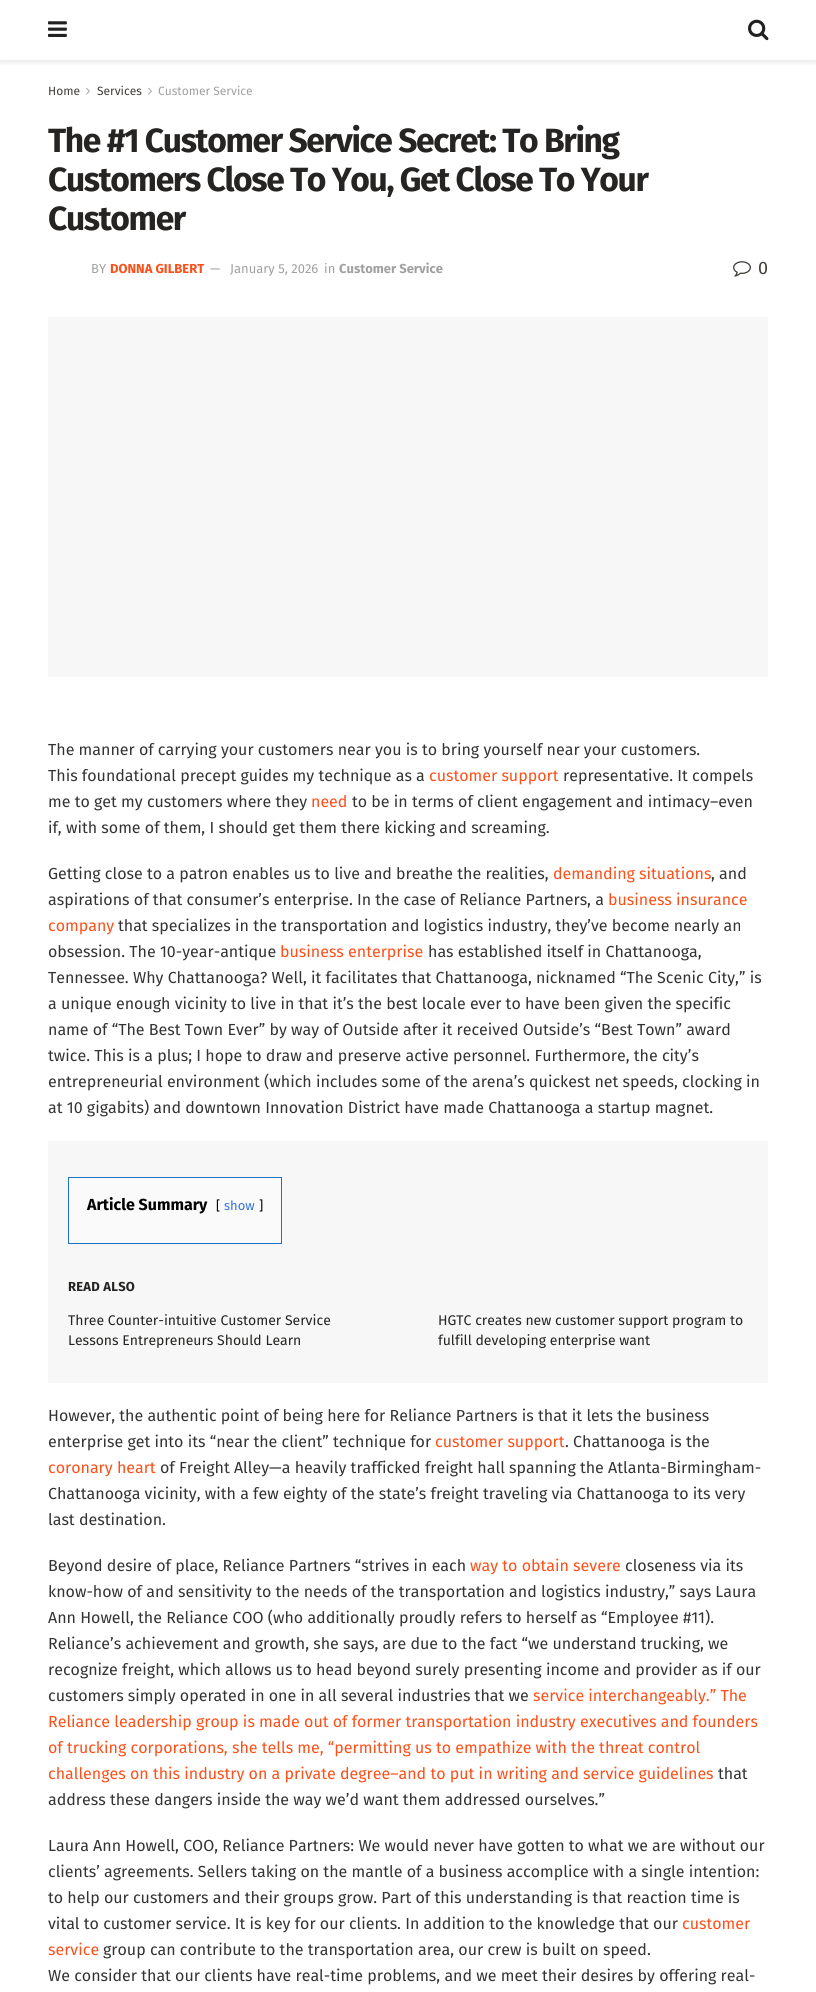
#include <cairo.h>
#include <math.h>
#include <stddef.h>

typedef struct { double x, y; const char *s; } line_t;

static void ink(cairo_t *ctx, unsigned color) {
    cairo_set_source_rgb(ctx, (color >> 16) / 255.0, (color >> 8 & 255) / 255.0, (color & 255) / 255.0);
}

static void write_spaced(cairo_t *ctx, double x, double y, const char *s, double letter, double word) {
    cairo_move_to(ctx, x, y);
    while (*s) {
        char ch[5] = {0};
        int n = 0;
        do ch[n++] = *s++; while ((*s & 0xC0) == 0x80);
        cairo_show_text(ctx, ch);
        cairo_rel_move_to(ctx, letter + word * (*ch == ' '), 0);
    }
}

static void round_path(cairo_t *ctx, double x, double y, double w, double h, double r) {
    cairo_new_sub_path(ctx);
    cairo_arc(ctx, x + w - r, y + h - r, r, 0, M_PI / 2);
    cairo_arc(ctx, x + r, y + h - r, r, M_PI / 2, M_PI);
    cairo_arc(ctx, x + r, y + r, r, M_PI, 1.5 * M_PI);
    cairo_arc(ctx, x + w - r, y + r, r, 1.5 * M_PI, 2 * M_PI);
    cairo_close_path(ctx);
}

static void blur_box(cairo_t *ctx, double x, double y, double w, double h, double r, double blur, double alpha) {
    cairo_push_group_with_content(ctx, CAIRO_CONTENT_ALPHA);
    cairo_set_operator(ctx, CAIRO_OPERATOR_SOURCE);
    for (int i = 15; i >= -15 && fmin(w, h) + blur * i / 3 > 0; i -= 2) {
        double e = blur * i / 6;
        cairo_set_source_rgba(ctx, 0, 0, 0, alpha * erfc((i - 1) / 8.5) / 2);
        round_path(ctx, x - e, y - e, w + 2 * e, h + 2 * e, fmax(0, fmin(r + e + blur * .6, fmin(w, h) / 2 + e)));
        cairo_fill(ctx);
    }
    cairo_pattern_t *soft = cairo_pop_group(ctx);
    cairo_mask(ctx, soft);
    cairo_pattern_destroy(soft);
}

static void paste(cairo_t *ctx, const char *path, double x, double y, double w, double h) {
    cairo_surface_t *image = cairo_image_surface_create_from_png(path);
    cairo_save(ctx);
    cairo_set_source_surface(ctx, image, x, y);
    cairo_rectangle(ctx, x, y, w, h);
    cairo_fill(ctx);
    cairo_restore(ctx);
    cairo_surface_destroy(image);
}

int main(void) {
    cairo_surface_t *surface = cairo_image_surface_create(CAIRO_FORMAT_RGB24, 816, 1992);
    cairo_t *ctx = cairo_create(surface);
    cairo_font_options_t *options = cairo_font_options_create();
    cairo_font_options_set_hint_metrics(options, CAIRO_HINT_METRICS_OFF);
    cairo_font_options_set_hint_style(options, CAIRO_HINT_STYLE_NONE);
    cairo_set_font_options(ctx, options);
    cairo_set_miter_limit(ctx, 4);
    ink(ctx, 0xFFFFFF);
    cairo_paint(ctx);
    cairo_save(ctx);
    cairo_rectangle(ctx, 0, 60, 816, 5);
    cairo_clip(ctx);
    ink(ctx, 0x000000);
    blur_box(ctx, 0, 2, 816, 60, 0, 3, 0.1);
    cairo_restore(ctx);
    paste(ctx, "media/1.png", 48, 21, 19, 16);
    paste(ctx, "media/2.png", 748, 19, 21, 22);
    cairo_select_font_face(ctx, "Fira Sans", CAIRO_FONT_SLANT_NORMAL, CAIRO_FONT_WEIGHT_NORMAL);
    cairo_set_font_size(ctx, 12);
    ink(ctx, 0x403D39);
    cairo_move_to(ctx, 48, 95);
    cairo_show_text(ctx, "Home");
    paste(ctx, "media/3.png", 86, 87, 4, 8);
    cairo_move_to(ctx, 97, 95);
    cairo_show_text(ctx, "Services");
    paste(ctx, "media/3.png", 148, 87, 4, 8);
    ink(ctx, 0xA0A0A0);
    cairo_move_to(ctx, 158, 95);
    cairo_show_text(ctx, "Customer Service");
    cairo_select_font_face(ctx, "Fira Sans", CAIRO_FONT_SLANT_NORMAL, CAIRO_FONT_WEIGHT_BOLD);
    cairo_set_font_size(ctx, 33.6);
    ink(ctx, 0x252422);
    {
        static const line_t items[] = {
            {48, 152, "The #1 Customer Service Secret: To Bring"},
            {48, 191, "Customers Close To You, Get Close To Your"},
            {48, 230, "Customer"},
        };
        for (size_t i = 0; i < sizeof items / sizeof *items; i++) {
            write_spaced(ctx, items[i].x, items[i].y, items[i].s, -1.35, 0);
        }
    }
    cairo_select_font_face(ctx, "Fira Sans", CAIRO_FONT_SLANT_NORMAL, CAIRO_FONT_WEIGHT_NORMAL);
    cairo_set_font_size(ctx, 13);
    ink(ctx, 0xA0A0A0);
    cairo_move_to(ctx, 91, 273);
    cairo_show_text(ctx, "BY");
    cairo_select_font_face(ctx, "Fira Sans", CAIRO_FONT_SLANT_NORMAL, CAIRO_FONT_WEIGHT_BOLD);
    ink(ctx, 0xFD4F18);
    cairo_move_to(ctx, 110, 273);
    cairo_show_text(ctx, "DONNA GILBERT");
    cairo_select_font_face(ctx, "Fira Sans", CAIRO_FONT_SLANT_NORMAL, CAIRO_FONT_WEIGHT_NORMAL);
    ink(ctx, 0xA0A0A0);
    {
        static const line_t items[] = {
            {210, 273, "—"},
            {230, 273, "January 5, 2026"},
            {324, 273, "in"},
        };
        for (size_t i = 0; i < sizeof items / sizeof *items; i++) {
            cairo_move_to(ctx, items[i].x, items[i].y);
            cairo_show_text(ctx, items[i].s);
        }
    }
    cairo_select_font_face(ctx, "Fira Sans", CAIRO_FONT_SLANT_NORMAL, CAIRO_FONT_WEIGHT_BOLD);
    cairo_move_to(ctx, 339, 273);
    cairo_show_text(ctx, "Customer Service");
    paste(ctx, "media/4.png", 733, 261, 18, 16);
    cairo_select_font_face(ctx, "Fira Sans", CAIRO_FONT_SLANT_NORMAL, CAIRO_FONT_WEIGHT_NORMAL);
    cairo_set_font_size(ctx, 18);
    ink(ctx, 0x403D39);
    cairo_move_to(ctx, 758, 274);
    cairo_show_text(ctx, "0");
    ink(ctx, 0xF7F7F7);
    cairo_rectangle(ctx, 48, 317, 720, 360);
    cairo_fill(ctx);
    cairo_set_font_size(ctx, 16);
    ink(ctx, 0x333333);
    cairo_move_to(ctx, 48, 755);
    cairo_show_text(ctx, "The manner of carrying your customers near you is to bring yourself near your customers.");
    cairo_move_to(ctx, 48, 781);
    cairo_show_text(ctx, "This foundational precept guides my technique as a");
    ink(ctx, 0xFD4F18);
    cairo_move_to(ctx, 429, 781);
    cairo_show_text(ctx, "customer support");
    ink(ctx, 0x333333);
    cairo_move_to(ctx, 563, 781);
    cairo_show_text(ctx, "representative. It compels");
    cairo_move_to(ctx, 48, 807);
    cairo_show_text(ctx, "me to get my customers where they");
    ink(ctx, 0xFD4F18);
    cairo_move_to(ctx, 311, 807);
    cairo_show_text(ctx, "need");
    ink(ctx, 0x333333);
    {
        static const line_t items[] = {
            {352, 807, "to be in terms of client engagement and intimacy–even"},
            {48, 833, "if, with some of them, I should get them there kicking and screaming."},
            {48, 879, "Getting close to a patron enables us to live and breathe the realities,"},
        };
        for (size_t i = 0; i < sizeof items / sizeof *items; i++) {
            cairo_move_to(ctx, items[i].x, items[i].y);
            cairo_show_text(ctx, items[i].s);
        }
    }
    ink(ctx, 0xFD4F18);
    cairo_move_to(ctx, 553, 879);
    cairo_show_text(ctx, "demanding situations");
    ink(ctx, 0x333333);
    cairo_move_to(ctx, 711, 879);
    cairo_show_text(ctx, ", and");
    cairo_move_to(ctx, 48, 905);
    cairo_show_text(ctx, "aspirations of that consumer’s enterprise. In the case of Reliance Partners, a");
    ink(ctx, 0xFD4F18);
    cairo_move_to(ctx, 608, 905);
    cairo_show_text(ctx, "business insurance");
    cairo_move_to(ctx, 48, 931);
    cairo_show_text(ctx, "company");
    ink(ctx, 0x333333);
    cairo_move_to(ctx, 118, 931);
    cairo_show_text(ctx, "that specializes in the transportation and logistics industry, they’ve become nearly an");
    cairo_move_to(ctx, 48, 957);
    cairo_show_text(ctx, "obsession. The 10-year-antique");
    ink(ctx, 0xFD4F18);
    cairo_move_to(ctx, 280, 957);
    cairo_show_text(ctx, "business enterprise");
    ink(ctx, 0x333333);
    {
        static const line_t items[] = {
            {428, 957, "has established itself in Chattanooga,"},
            {48, 983, "Tennessee. Why Chattanooga? Well, it facilitates that Chattanooga, nicknamed “The Scenic City,” is"},
            {48, 1009, "a unique enough vicinity to live in that it’s the best locale ever to have been given the specific"},
            {48, 1035, "name of “The Best Town Ever” by way of Outside after it received Outside’s “Best Town” award"},
            {48, 1061, "twice. This is a plus; I hope to draw and preserve active personnel. Furthermore, the city’s"},
            {48, 1087, "entrepreneurial environment (which includes some of the arena’s quickest net speeds, clocking in"},
            {48, 1113, "at 10 gigabits) and downtown Innovation District have made Chattanooga a startup magnet."},
        };
        for (size_t i = 0; i < sizeof items / sizeof *items; i++) {
            cairo_move_to(ctx, items[i].x, items[i].y);
            cairo_show_text(ctx, items[i].s);
        }
    }
    ink(ctx, 0xF7F7F7);
    cairo_rectangle(ctx, 48, 1141, 720, 242);
    cairo_fill(ctx);
    ink(ctx, 0xFAFAFA);
    cairo_rectangle(ctx, 68.5, 1177.5, 213, 66);
    cairo_fill_preserve(ctx);
    ink(ctx, 0x1E73BE);
    cairo_set_line_width(ctx, 1);
    cairo_stroke(ctx);
    cairo_select_font_face(ctx, "Fira Sans", CAIRO_FONT_SLANT_NORMAL, CAIRO_FONT_WEIGHT_BOLD);
    ink(ctx, 0x000000);
    cairo_move_to(ctx, 87, 1210);
    cairo_show_text(ctx, "Article Summary");
    cairo_select_font_face(ctx, "Fira Sans", CAIRO_FONT_SLANT_NORMAL, CAIRO_FONT_WEIGHT_NORMAL);
    cairo_set_font_size(ctx, 13);
    cairo_move_to(ctx, 216, 1210);
    cairo_show_text(ctx, "[");
    ink(ctx, 0x3175E4);
    cairo_move_to(ctx, 224, 1210);
    cairo_show_text(ctx, "show");
    ink(ctx, 0x000000);
    cairo_move_to(ctx, 259, 1210);
    cairo_show_text(ctx, "]");
    cairo_select_font_face(ctx, "Fira Sans", CAIRO_FONT_SLANT_NORMAL, CAIRO_FONT_WEIGHT_BOLD);
    ink(ctx, 0x252422);
    write_spaced(ctx, 68, 1291, "READ ALSO", 0.25, 0);
    cairo_select_font_face(ctx, "Fira Sans", CAIRO_FONT_SLANT_NORMAL, CAIRO_FONT_WEIGHT_NORMAL);
    cairo_set_font_size(ctx, 14);
    {
        static const line_t items[] = {
            {68, 1325, "Three Counter-intuitive Customer Service"},
            {68, 1345, "Lessons Entrepreneurs Should Learn"},
            {438, 1325, "HGTC creates new customer support program to"},
            {438, 1345, "fulfill developing enterprise want"},
        };
        for (size_t i = 0; i < sizeof items / sizeof *items; i++) {
            cairo_move_to(ctx, items[i].x, items[i].y);
            cairo_show_text(ctx, items[i].s);
        }
    }
    cairo_set_font_size(ctx, 16);
    ink(ctx, 0x333333);
    cairo_move_to(ctx, 48, 1421);
    cairo_show_text(ctx, "However, the authentic point of being here for Reliance Partners is that it lets the business");
    cairo_move_to(ctx, 48, 1447);
    cairo_show_text(ctx, "enterprise get into its “near the client” technique for");
    ink(ctx, 0xFD4F18);
    cairo_move_to(ctx, 435, 1447);
    cairo_show_text(ctx, "customer support");
    ink(ctx, 0x333333);
    cairo_move_to(ctx, 565, 1447);
    cairo_show_text(ctx, ". Chattanooga is the");
    ink(ctx, 0xFD4F18);
    cairo_move_to(ctx, 48, 1473);
    cairo_show_text(ctx, "coronary heart");
    ink(ctx, 0x333333);
    {
        static const line_t items[] = {
            {160, 1473, "of Freight Alley—a heavily trafficked freight hall spanning the Atlanta-Birmingham-"},
            {48, 1499, "Chattanooga vicinity, with a few eighty of the state’s freight traveling via Chattanooga to its very"},
            {48, 1525, "last destination."},
            {48, 1571, "Beyond desire of place, Reliance Partners “strives in each"},
        };
        for (size_t i = 0; i < sizeof items / sizeof *items; i++) {
            cairo_move_to(ctx, items[i].x, items[i].y);
            cairo_show_text(ctx, items[i].s);
        }
    }
    ink(ctx, 0xFD4F18);
    cairo_move_to(ctx, 470, 1571);
    cairo_show_text(ctx, "way to obtain severe");
    ink(ctx, 0x333333);
    {
        static const line_t items[] = {
            {625, 1571, "closeness via its"},
            {48, 1597, "know-how of and sensitivity to the needs of the transportation and logistics industry,” says Laura"},
            {48, 1623, "Ann Howell, the Reliance COO (who additionally proudly refers to herself as “Employee #11)."},
            {48, 1649, "Reliance’s achievement and growth, she says, are due to the fact “we understand trucking, we"},
            {48, 1675, "recognize freight, which allows us to head beyond surely presenting income and provider as if our"},
            {48, 1701, "customers simply operated in one in all several industries that we"},
        };
        for (size_t i = 0; i < sizeof items / sizeof *items; i++) {
            cairo_move_to(ctx, items[i].x, items[i].y);
            cairo_show_text(ctx, items[i].s);
        }
    }
    ink(ctx, 0xFD4F18);
    {
        static const line_t items[] = {
            {533, 1701, "service interchangeably.” The"},
            {48, 1727, "Reliance leadership group is made out of former transportation industry executives and founders"},
            {48, 1753, "of trucking corporations, she tells me, “permitting us to empathize with the threat control"},
            {48, 1779, "challenges on this industry on a private degree–and to put in writing and service guidelines"},
        };
        for (size_t i = 0; i < sizeof items / sizeof *items; i++) {
            cairo_move_to(ctx, items[i].x, items[i].y);
            cairo_show_text(ctx, items[i].s);
        }
    }
    ink(ctx, 0x333333);
    {
        static const line_t items[] = {
            {718, 1779, "that"},
            {48, 1805, "address these dangers inside the way we’d want them addressed ourselves.”"},
            {48, 1851, "Laura Ann Howell, COO, Reliance Partners: We would never have gotten to what we are without our"},
            {48, 1877, "clients’ agreements. Sellers taking on the mantle of a business accomplice with a single intention:"},
            {48, 1903, "to help our customers and their groups grow. Part of this understanding is that reaction time is"},
            {48, 1929, "vital to customer service. It is key for our clients. In addition to the knowledge that our"},
        };
        for (size_t i = 0; i < sizeof items / sizeof *items; i++) {
            cairo_move_to(ctx, items[i].x, items[i].y);
            cairo_show_text(ctx, items[i].s);
        }
    }
    ink(ctx, 0xFD4F18);
    cairo_move_to(ctx, 682, 1929);
    cairo_show_text(ctx, "customer");
    cairo_move_to(ctx, 48, 1955);
    cairo_show_text(ctx, "service");
    ink(ctx, 0x333333);
    cairo_move_to(ctx, 103, 1955);
    cairo_show_text(ctx, "group can contribute to the transportation area, our crew is built on speed.");
    cairo_move_to(ctx, 48, 1981);
    cairo_show_text(ctx, "We consider that our clients have real-time problems, and we meet their desires by offering real-");
    cairo_surface_write_to_png(surface, "image.png");
    cairo_font_options_destroy(options);
    cairo_destroy(ctx);
    cairo_surface_destroy(surface);
    return 0;
}
